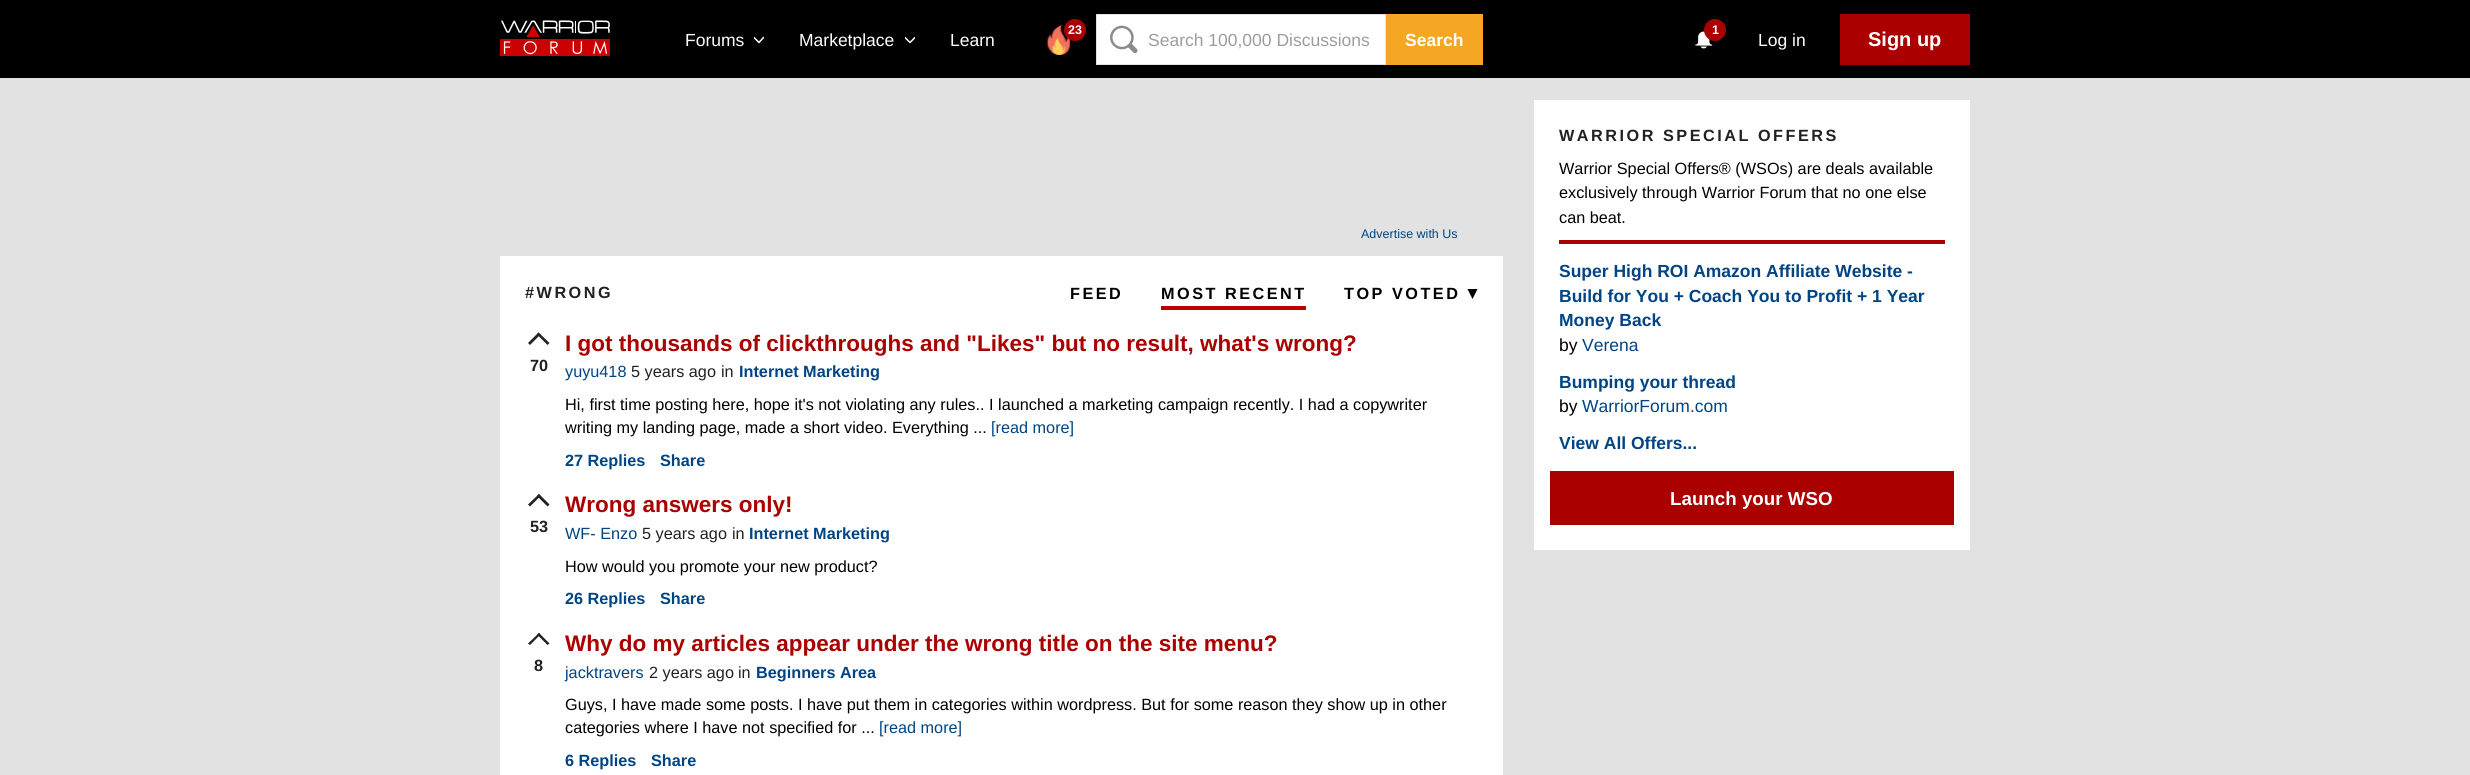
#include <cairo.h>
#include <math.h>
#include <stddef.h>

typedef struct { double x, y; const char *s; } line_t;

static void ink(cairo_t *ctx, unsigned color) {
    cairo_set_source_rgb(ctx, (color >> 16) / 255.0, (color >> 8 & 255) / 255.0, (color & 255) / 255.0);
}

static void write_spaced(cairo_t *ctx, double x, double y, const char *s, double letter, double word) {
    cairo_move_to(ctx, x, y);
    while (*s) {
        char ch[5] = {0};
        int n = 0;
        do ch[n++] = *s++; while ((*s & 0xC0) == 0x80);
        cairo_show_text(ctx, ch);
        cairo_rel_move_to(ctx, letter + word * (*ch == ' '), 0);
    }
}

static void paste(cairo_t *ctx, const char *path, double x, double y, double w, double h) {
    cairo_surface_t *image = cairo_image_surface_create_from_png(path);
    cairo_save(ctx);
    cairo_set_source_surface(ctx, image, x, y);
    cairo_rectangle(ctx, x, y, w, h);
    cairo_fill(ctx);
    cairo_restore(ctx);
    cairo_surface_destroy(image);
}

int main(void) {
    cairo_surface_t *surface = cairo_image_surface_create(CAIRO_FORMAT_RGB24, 2470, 775);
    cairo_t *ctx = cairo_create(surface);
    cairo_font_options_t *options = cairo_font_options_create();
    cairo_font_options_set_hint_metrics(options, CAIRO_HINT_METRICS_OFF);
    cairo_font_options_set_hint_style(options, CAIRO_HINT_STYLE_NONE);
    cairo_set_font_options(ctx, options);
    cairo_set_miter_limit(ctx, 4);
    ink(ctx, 0xE2E2E2);
    cairo_paint(ctx);
    ink(ctx, 0x000000);
    cairo_rectangle(ctx, 0, 0, 2470, 78);
    cairo_fill(ctx);
    paste(ctx, "media/1.png", 500, 20, 110, 36);
    paste(ctx, "media/2.png", 1046, 25, 25, 30);
    ink(ctx, 0xAA0000);
    cairo_arc(ctx, 1075, 30, 11, 0, 2 * M_PI);
    cairo_fill(ctx);
    cairo_select_font_face(ctx, "Liberation Sans", CAIRO_FONT_SLANT_NORMAL, CAIRO_FONT_WEIGHT_BOLD);
    cairo_set_font_size(ctx, 12.5);
    ink(ctx, 0xFFFFFF);
    cairo_move_to(ctx, 1068, 34);
    cairo_show_text(ctx, "23");
    cairo_select_font_face(ctx, "Liberation Sans", CAIRO_FONT_SLANT_NORMAL, CAIRO_FONT_WEIGHT_NORMAL);
    cairo_set_font_size(ctx, 17.5);
    cairo_move_to(ctx, 685, 46);
    cairo_show_text(ctx, "Forums");
    cairo_save(ctx);
    cairo_rectangle(ctx, 754, 25, 10, 30);
    cairo_clip(ctx);
    cairo_new_path(ctx);
    cairo_move_to(ctx, 754, 37.5);
    cairo_line_to(ctx, 759, 42.5);
    cairo_line_to(ctx, 763.5, 37.5);
    cairo_set_line_width(ctx, 1.5);
    cairo_set_line_cap(ctx, CAIRO_LINE_CAP_ROUND);
    cairo_set_line_join(ctx, CAIRO_LINE_JOIN_ROUND);
    cairo_stroke(ctx);
    cairo_restore(ctx);
    cairo_move_to(ctx, 799, 46);
    cairo_show_text(ctx, "Marketplace");
    cairo_save(ctx);
    cairo_rectangle(ctx, 905, 25, 10, 30);
    cairo_clip(ctx);
    cairo_new_path(ctx);
    cairo_move_to(ctx, 905, 37.5);
    cairo_line_to(ctx, 910, 42.5);
    cairo_line_to(ctx, 915, 37.5);
    cairo_set_line_width(ctx, 1.5);
    cairo_set_line_cap(ctx, CAIRO_LINE_CAP_ROUND);
    cairo_set_line_join(ctx, CAIRO_LINE_JOIN_ROUND);
    cairo_stroke(ctx);
    cairo_restore(ctx);
    cairo_move_to(ctx, 950, 46);
    cairo_show_text(ctx, "Learn");
    cairo_rectangle(ctx, 1097, 15, 288, 49);
    cairo_fill(ctx);
    paste(ctx, "media/3.png", 1110, 25, 28, 29);
    cairo_rectangle(ctx, 1096.5, 14.5, 289, 50);
    ink(ctx, 0xE2E2E2);
    cairo_set_line_width(ctx, 1);
    cairo_stroke(ctx);
    ink(ctx, 0x9D9D9D);
    cairo_move_to(ctx, 1148, 46);
    cairo_show_text(ctx, "Search 100,000 Discussions");
    ink(ctx, 0xF5A623);
    cairo_rectangle(ctx, 1386, 14, 97, 51);
    cairo_fill(ctx);
    cairo_select_font_face(ctx, "Liberation Sans", CAIRO_FONT_SLANT_NORMAL, CAIRO_FONT_WEIGHT_BOLD);
    ink(ctx, 0xFFFFFF);
    cairo_move_to(ctx, 1405, 46);
    cairo_show_text(ctx, "Search");
    paste(ctx, "media/4.png", 1695, 31, 18, 18);
    ink(ctx, 0xAA0000);
    cairo_arc(ctx, 1715, 30, 11, 0, 2 * M_PI);
    cairo_fill(ctx);
    cairo_set_font_size(ctx, 12.5);
    ink(ctx, 0xFFFFFF);
    cairo_move_to(ctx, 1712, 34);
    cairo_show_text(ctx, "1");
    cairo_select_font_face(ctx, "Liberation Sans", CAIRO_FONT_SLANT_NORMAL, CAIRO_FONT_WEIGHT_NORMAL);
    cairo_set_font_size(ctx, 17.5);
    cairo_move_to(ctx, 1758, 46);
    cairo_show_text(ctx, "Log in");
    ink(ctx, 0xAA0000);
    cairo_rectangle(ctx, 1840, 14, 130, 51);
    cairo_fill(ctx);
    cairo_select_font_face(ctx, "Liberation Sans", CAIRO_FONT_SLANT_NORMAL, CAIRO_FONT_WEIGHT_BOLD);
    cairo_set_font_size(ctx, 20);
    ink(ctx, 0xFFFFFF);
    cairo_move_to(ctx, 1868, 46);
    cairo_show_text(ctx, "Sign up");
    cairo_select_font_face(ctx, "Liberation Sans", CAIRO_FONT_SLANT_NORMAL, CAIRO_FONT_WEIGHT_NORMAL);
    cairo_set_font_size(ctx, 12.5);
    ink(ctx, 0x004483);
    cairo_move_to(ctx, 1361, 238);
    cairo_show_text(ctx, "Advertise with Us");
    ink(ctx, 0xFFFFFF);
    cairo_rectangle(ctx, 500, 256, 1003, 519);
    cairo_fill(ctx);
    cairo_select_font_face(ctx, "Liberation Sans", CAIRO_FONT_SLANT_NORMAL, CAIRO_FONT_WEIGHT_BOLD);
    cairo_set_font_size(ctx, 16.25);
    ink(ctx, 0x212121);
    write_spaced(ctx, 525, 298, "#WRONG", 2.5, 0);
    ink(ctx, 0x000000);
    write_spaced(ctx, 1070, 299, "FEED", 2.5, 0);
    write_spaced(ctx, 1161, 299, "MOST RECENT", 2.5, 0);
    ink(ctx, 0xBB0000);
    cairo_rectangle(ctx, 1161, 306, 145, 4);
    cairo_fill(ctx);
    ink(ctx, 0x000000);
    write_spaced(ctx, 1344, 299, "TOP VOTED", 2.5, 0);
    cairo_new_path(ctx);
    cairo_move_to(ctx, 1467.5, 289);
    cairo_line_to(ctx, 1477.5, 289);
    cairo_line_to(ctx, 1472.5, 299);
    cairo_close_path(ctx);
    cairo_fill(ctx);
    ink(ctx, 0x212121);
    cairo_new_path(ctx);
    cairo_move_to(ctx, 540.5, 334.5);
    cairo_line_to(ctx, 530, 345);
    cairo_line_to(ctx, 528, 343);
    cairo_line_to(ctx, 538.5, 332.5);
    cairo_close_path(ctx);
    cairo_fill(ctx);
    cairo_new_path(ctx);
    cairo_move_to(ctx, 549.5, 343);
    cairo_line_to(ctx, 547.5, 345);
    cairo_line_to(ctx, 537, 334.5);
    cairo_line_to(ctx, 538.5, 332.5);
    cairo_close_path(ctx);
    cairo_fill(ctx);
    cairo_move_to(ctx, 530, 371);
    cairo_show_text(ctx, "70");
    cairo_set_font_size(ctx, 22.5);
    ink(ctx, 0xAA0000);
    cairo_move_to(ctx, 565, 351);
    cairo_show_text(ctx, "I got thousands of clickthroughs and \"Likes\" but no result, what's wrong?");
    cairo_select_font_face(ctx, "Liberation Sans", CAIRO_FONT_SLANT_NORMAL, CAIRO_FONT_WEIGHT_NORMAL);
    cairo_set_font_size(ctx, 16.25);
    ink(ctx, 0x004483);
    cairo_move_to(ctx, 565, 377);
    cairo_show_text(ctx, "yuyu418");
    ink(ctx, 0x212121);
    cairo_move_to(ctx, 631, 377);
    cairo_show_text(ctx, "5 years ago");
    cairo_move_to(ctx, 721, 377);
    cairo_show_text(ctx, "in");
    cairo_select_font_face(ctx, "Liberation Sans", CAIRO_FONT_SLANT_NORMAL, CAIRO_FONT_WEIGHT_BOLD);
    ink(ctx, 0x004483);
    cairo_move_to(ctx, 739, 377);
    cairo_show_text(ctx, "Internet Marketing");
    cairo_select_font_face(ctx, "Liberation Sans", CAIRO_FONT_SLANT_NORMAL, CAIRO_FONT_WEIGHT_NORMAL);
    ink(ctx, 0x000000);
    cairo_move_to(ctx, 565, 410);
    cairo_show_text(ctx, "Hi, first time posting here, hope it's not violating any rules.. I launched a marketing campaign recently. I had a copywriter");
    cairo_move_to(ctx, 565, 433);
    cairo_show_text(ctx, "writing my landing page, made a short video. Everything ...");
    ink(ctx, 0x004483);
    cairo_move_to(ctx, 991, 433);
    cairo_show_text(ctx, "[read more]");
    cairo_select_font_face(ctx, "Liberation Sans", CAIRO_FONT_SLANT_NORMAL, CAIRO_FONT_WEIGHT_BOLD);
    cairo_move_to(ctx, 565, 466);
    cairo_show_text(ctx, "27 Replies");
    cairo_move_to(ctx, 660, 466);
    cairo_show_text(ctx, "Share");
    ink(ctx, 0x212121);
    cairo_new_path(ctx);
    cairo_move_to(ctx, 540.5, 496);
    cairo_line_to(ctx, 530, 506.5);
    cairo_line_to(ctx, 528, 504.5);
    cairo_line_to(ctx, 539, 494);
    cairo_close_path(ctx);
    cairo_fill(ctx);
    cairo_new_path(ctx);
    cairo_move_to(ctx, 549.5, 504.5);
    cairo_line_to(ctx, 547.5, 506.5);
    cairo_line_to(ctx, 537, 496);
    cairo_line_to(ctx, 539, 494);
    cairo_close_path(ctx);
    cairo_fill(ctx);
    cairo_move_to(ctx, 530, 532);
    cairo_show_text(ctx, "53");
    cairo_set_font_size(ctx, 22.5);
    ink(ctx, 0xAA0000);
    cairo_move_to(ctx, 565, 512);
    cairo_show_text(ctx, "Wrong answers only!");
    cairo_select_font_face(ctx, "Liberation Sans", CAIRO_FONT_SLANT_NORMAL, CAIRO_FONT_WEIGHT_NORMAL);
    cairo_set_font_size(ctx, 16.25);
    ink(ctx, 0x004483);
    cairo_move_to(ctx, 565, 539);
    cairo_show_text(ctx, "WF- Enzo");
    ink(ctx, 0x212121);
    cairo_move_to(ctx, 642, 539);
    cairo_show_text(ctx, "5 years ago");
    cairo_move_to(ctx, 732, 539);
    cairo_show_text(ctx, "in");
    cairo_select_font_face(ctx, "Liberation Sans", CAIRO_FONT_SLANT_NORMAL, CAIRO_FONT_WEIGHT_BOLD);
    ink(ctx, 0x004483);
    cairo_move_to(ctx, 749, 539);
    cairo_show_text(ctx, "Internet Marketing");
    cairo_select_font_face(ctx, "Liberation Sans", CAIRO_FONT_SLANT_NORMAL, CAIRO_FONT_WEIGHT_NORMAL);
    ink(ctx, 0x000000);
    cairo_move_to(ctx, 565, 572);
    cairo_show_text(ctx, "How would you promote your new product?");
    cairo_select_font_face(ctx, "Liberation Sans", CAIRO_FONT_SLANT_NORMAL, CAIRO_FONT_WEIGHT_BOLD);
    ink(ctx, 0x004483);
    cairo_move_to(ctx, 565, 604);
    cairo_show_text(ctx, "26 Replies");
    cairo_move_to(ctx, 660, 604);
    cairo_show_text(ctx, "Share");
    ink(ctx, 0x212121);
    cairo_new_path(ctx);
    cairo_move_to(ctx, 540.5, 634.5);
    cairo_line_to(ctx, 530, 645);
    cairo_line_to(ctx, 528, 643.5);
    cairo_line_to(ctx, 539, 633);
    cairo_close_path(ctx);
    cairo_fill(ctx);
    cairo_new_path(ctx);
    cairo_move_to(ctx, 549.5, 643.5);
    cairo_line_to(ctx, 547.5, 645);
    cairo_line_to(ctx, 537, 634.5);
    cairo_line_to(ctx, 539, 633);
    cairo_close_path(ctx);
    cairo_fill(ctx);
    cairo_move_to(ctx, 534, 671);
    cairo_show_text(ctx, "8");
    cairo_set_font_size(ctx, 22.5);
    ink(ctx, 0xAA0000);
    cairo_move_to(ctx, 565, 651);
    cairo_show_text(ctx, "Why do my articles appear under the wrong title on the site menu?");
    cairo_select_font_face(ctx, "Liberation Sans", CAIRO_FONT_SLANT_NORMAL, CAIRO_FONT_WEIGHT_NORMAL);
    cairo_set_font_size(ctx, 16.25);
    ink(ctx, 0x004483);
    cairo_move_to(ctx, 565, 678);
    cairo_show_text(ctx, "jacktravers");
    ink(ctx, 0x212121);
    cairo_move_to(ctx, 649, 678);
    cairo_show_text(ctx, "2 years ago");
    cairo_move_to(ctx, 738, 678);
    cairo_show_text(ctx, "in");
    cairo_select_font_face(ctx, "Liberation Sans", CAIRO_FONT_SLANT_NORMAL, CAIRO_FONT_WEIGHT_BOLD);
    ink(ctx, 0x004483);
    cairo_move_to(ctx, 756, 678);
    cairo_show_text(ctx, "Beginners Area");
    cairo_select_font_face(ctx, "Liberation Sans", CAIRO_FONT_SLANT_NORMAL, CAIRO_FONT_WEIGHT_NORMAL);
    ink(ctx, 0x000000);
    cairo_move_to(ctx, 565, 710);
    cairo_show_text(ctx, "Guys, I have made some posts. I have put them in categories within wordpress. But for some reason they show up in other");
    cairo_move_to(ctx, 565, 733);
    cairo_show_text(ctx, "categories where I have not specified for ...");
    ink(ctx, 0x004483);
    cairo_move_to(ctx, 879, 733);
    cairo_show_text(ctx, "[read more]");
    cairo_select_font_face(ctx, "Liberation Sans", CAIRO_FONT_SLANT_NORMAL, CAIRO_FONT_WEIGHT_BOLD);
    cairo_move_to(ctx, 565, 766);
    cairo_show_text(ctx, "6 Replies");
    cairo_move_to(ctx, 651, 766);
    cairo_show_text(ctx, "Share");
    ink(ctx, 0xFFFFFF);
    cairo_rectangle(ctx, 1534, 100, 436, 450);
    cairo_fill(ctx);
    ink(ctx, 0xAA0000);
    cairo_rectangle(ctx, 1559, 240, 386, 4);
    cairo_fill(ctx);
    ink(ctx, 0x212121);
    write_spaced(ctx, 1559, 141, "WARRIOR SPECIAL OFFERS", 2.5, 0);
    cairo_select_font_face(ctx, "Liberation Sans", CAIRO_FONT_SLANT_NORMAL, CAIRO_FONT_WEIGHT_NORMAL);
    ink(ctx, 0x000000);
    {
        static const line_t items[] = {
            {1559, 174, "Warrior Special Offers® (WSOs) are deals available"},
            {1559, 198, "exclusively through Warrior Forum that no one else"},
            {1559, 223, "can beat."},
        };
        for (size_t i = 0; i < sizeof items / sizeof *items; i++) {
            cairo_move_to(ctx, items[i].x, items[i].y);
            cairo_show_text(ctx, items[i].s);
        }
    }
    cairo_select_font_face(ctx, "Liberation Sans", CAIRO_FONT_SLANT_NORMAL, CAIRO_FONT_WEIGHT_BOLD);
    cairo_set_font_size(ctx, 17.5);
    ink(ctx, 0x004483);
    {
        static const line_t items[] = {
            {1559, 277, "Super High ROI Amazon Affiliate Website -"},
            {1559, 302, "Build for You + Coach You to Profit + 1 Year"},
            {1559, 326, "Money Back"},
        };
        for (size_t i = 0; i < sizeof items / sizeof *items; i++) {
            cairo_move_to(ctx, items[i].x, items[i].y);
            cairo_show_text(ctx, items[i].s);
        }
    }
    cairo_select_font_face(ctx, "Liberation Sans", CAIRO_FONT_SLANT_NORMAL, CAIRO_FONT_WEIGHT_NORMAL);
    ink(ctx, 0x000000);
    cairo_move_to(ctx, 1559, 351);
    cairo_show_text(ctx, "by");
    ink(ctx, 0x004483);
    cairo_move_to(ctx, 1582, 351);
    cairo_show_text(ctx, "Verena");
    cairo_select_font_face(ctx, "Liberation Sans", CAIRO_FONT_SLANT_NORMAL, CAIRO_FONT_WEIGHT_BOLD);
    cairo_move_to(ctx, 1559, 388);
    cairo_show_text(ctx, "Bumping your thread");
    cairo_select_font_face(ctx, "Liberation Sans", CAIRO_FONT_SLANT_NORMAL, CAIRO_FONT_WEIGHT_NORMAL);
    ink(ctx, 0x000000);
    cairo_move_to(ctx, 1559, 412);
    cairo_show_text(ctx, "by");
    ink(ctx, 0x004483);
    cairo_move_to(ctx, 1582, 412);
    cairo_show_text(ctx, "WarriorForum.com");
    cairo_select_font_face(ctx, "Liberation Sans", CAIRO_FONT_SLANT_NORMAL, CAIRO_FONT_WEIGHT_BOLD);
    cairo_move_to(ctx, 1559, 449);
    cairo_show_text(ctx, "View All Offers...");
    ink(ctx, 0xAA0000);
    cairo_rectangle(ctx, 1550, 471, 404, 54);
    cairo_fill(ctx);
    cairo_set_font_size(ctx, 18.75);
    ink(ctx, 0xFFFFFF);
    cairo_move_to(ctx, 1670, 505);
    cairo_show_text(ctx, "Launch your WSO");
    cairo_surface_write_to_png(surface, "image.png");
    cairo_font_options_destroy(options);
    cairo_destroy(ctx);
    cairo_surface_destroy(surface);
    return 0;
}
